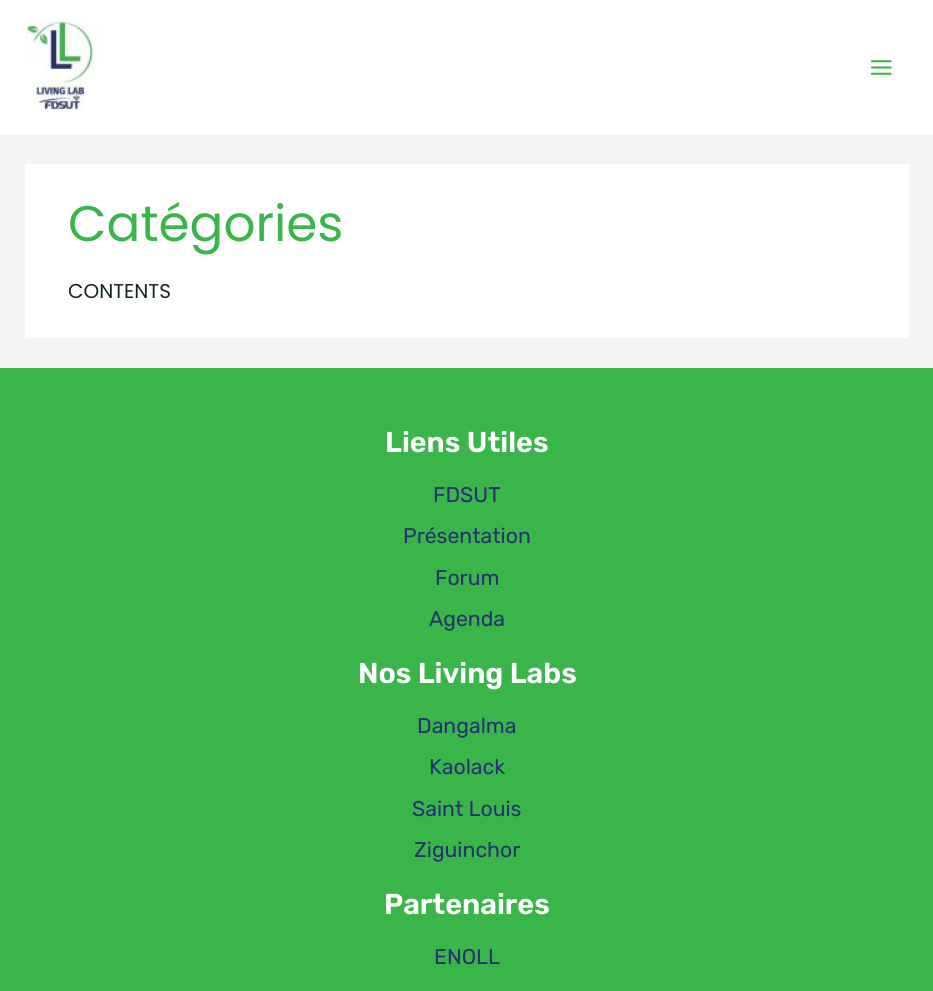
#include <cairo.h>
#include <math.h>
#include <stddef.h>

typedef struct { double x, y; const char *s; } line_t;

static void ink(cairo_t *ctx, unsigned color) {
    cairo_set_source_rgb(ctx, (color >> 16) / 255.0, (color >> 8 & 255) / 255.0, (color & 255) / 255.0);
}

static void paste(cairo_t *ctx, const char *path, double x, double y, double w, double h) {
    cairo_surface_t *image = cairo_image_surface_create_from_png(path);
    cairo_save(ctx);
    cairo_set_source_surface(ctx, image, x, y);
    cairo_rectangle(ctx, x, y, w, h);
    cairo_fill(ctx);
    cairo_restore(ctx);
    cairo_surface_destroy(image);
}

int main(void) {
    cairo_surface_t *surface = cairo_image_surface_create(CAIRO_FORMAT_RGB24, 933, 991);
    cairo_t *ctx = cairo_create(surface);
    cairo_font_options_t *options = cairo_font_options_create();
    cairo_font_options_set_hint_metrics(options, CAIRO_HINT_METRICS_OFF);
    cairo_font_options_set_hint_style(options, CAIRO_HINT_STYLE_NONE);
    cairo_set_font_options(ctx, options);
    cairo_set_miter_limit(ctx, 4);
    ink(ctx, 0xF4F6F4);
    cairo_paint(ctx);
    ink(ctx, 0xFFFFFF);
    cairo_rectangle(ctx, 0, 0, 933, 134);
    cairo_fill(ctx);
    paste(ctx, "media/1.png", 25, 20, 75, 93);
    paste(ctx, "media/2.png", 870, 60, 22, 15);
    cairo_rectangle(ctx, 25, 164, 884, 174);
    cairo_fill(ctx);
    cairo_select_font_face(ctx, "Poppins", CAIRO_FONT_SLANT_NORMAL, CAIRO_FONT_WEIGHT_NORMAL);
    cairo_set_font_size(ctx, 50);
    ink(ctx, 0x3AB54A);
    cairo_move_to(ctx, 68, 241);
    cairo_show_text(ctx, "Catégories");
    cairo_set_font_size(ctx, 20);
    ink(ctx, 0x14261C);
    cairo_move_to(ctx, 68, 298);
    cairo_show_text(ctx, "CONTENTS");
    ink(ctx, 0x3AB54A);
    cairo_rectangle(ctx, 0, 368, 933, 623);
    cairo_fill(ctx);
    cairo_select_font_face(ctx, "Rubik SemiBold", CAIRO_FONT_SLANT_NORMAL, CAIRO_FONT_WEIGHT_NORMAL);
    cairo_set_font_size(ctx, 28.75);
    ink(ctx, 0xFFFFFF);
    cairo_move_to(ctx, 385, 452);
    cairo_show_text(ctx, "Liens Utiles");
    cairo_select_font_face(ctx, "Rubik", CAIRO_FONT_SLANT_NORMAL, CAIRO_FONT_WEIGHT_NORMAL);
    cairo_set_font_size(ctx, 21.25);
    ink(ctx, 0x27316F);
    {
        static const line_t items[] = {
            {433, 502, "FDSUT"},
            {403, 543, "Présentation"},
            {435, 585, "Forum"},
            {429, 626, "Agenda"},
        };
        for (size_t i = 0; i < sizeof items / sizeof *items; i++) {
            cairo_move_to(ctx, items[i].x, items[i].y);
            cairo_show_text(ctx, items[i].s);
        }
    }
    cairo_select_font_face(ctx, "Rubik SemiBold", CAIRO_FONT_SLANT_NORMAL, CAIRO_FONT_WEIGHT_NORMAL);
    cairo_set_font_size(ctx, 28.75);
    ink(ctx, 0xFFFFFF);
    cairo_move_to(ctx, 358, 683);
    cairo_show_text(ctx, "Nos Living Labs");
    cairo_select_font_face(ctx, "Rubik", CAIRO_FONT_SLANT_NORMAL, CAIRO_FONT_WEIGHT_NORMAL);
    cairo_set_font_size(ctx, 21.25);
    ink(ctx, 0x27316F);
    {
        static const line_t items[] = {
            {417, 733, "Dangalma"},
            {429, 774, "Kaolack"},
            {412, 816, "Saint Louis"},
            {414, 857, "Ziguinchor"},
        };
        for (size_t i = 0; i < sizeof items / sizeof *items; i++) {
            cairo_move_to(ctx, items[i].x, items[i].y);
            cairo_show_text(ctx, items[i].s);
        }
    }
    cairo_select_font_face(ctx, "Rubik SemiBold", CAIRO_FONT_SLANT_NORMAL, CAIRO_FONT_WEIGHT_NORMAL);
    cairo_set_font_size(ctx, 28.75);
    ink(ctx, 0xFFFFFF);
    cairo_move_to(ctx, 384, 914);
    cairo_show_text(ctx, "Partenaires");
    cairo_select_font_face(ctx, "Rubik", CAIRO_FONT_SLANT_NORMAL, CAIRO_FONT_WEIGHT_NORMAL);
    cairo_set_font_size(ctx, 21.25);
    ink(ctx, 0x27316F);
    cairo_move_to(ctx, 434, 964);
    cairo_show_text(ctx, "ENOLL");
    cairo_surface_write_to_png(surface, "image.png");
    cairo_font_options_destroy(options);
    cairo_destroy(ctx);
    cairo_surface_destroy(surface);
    return 0;
}
